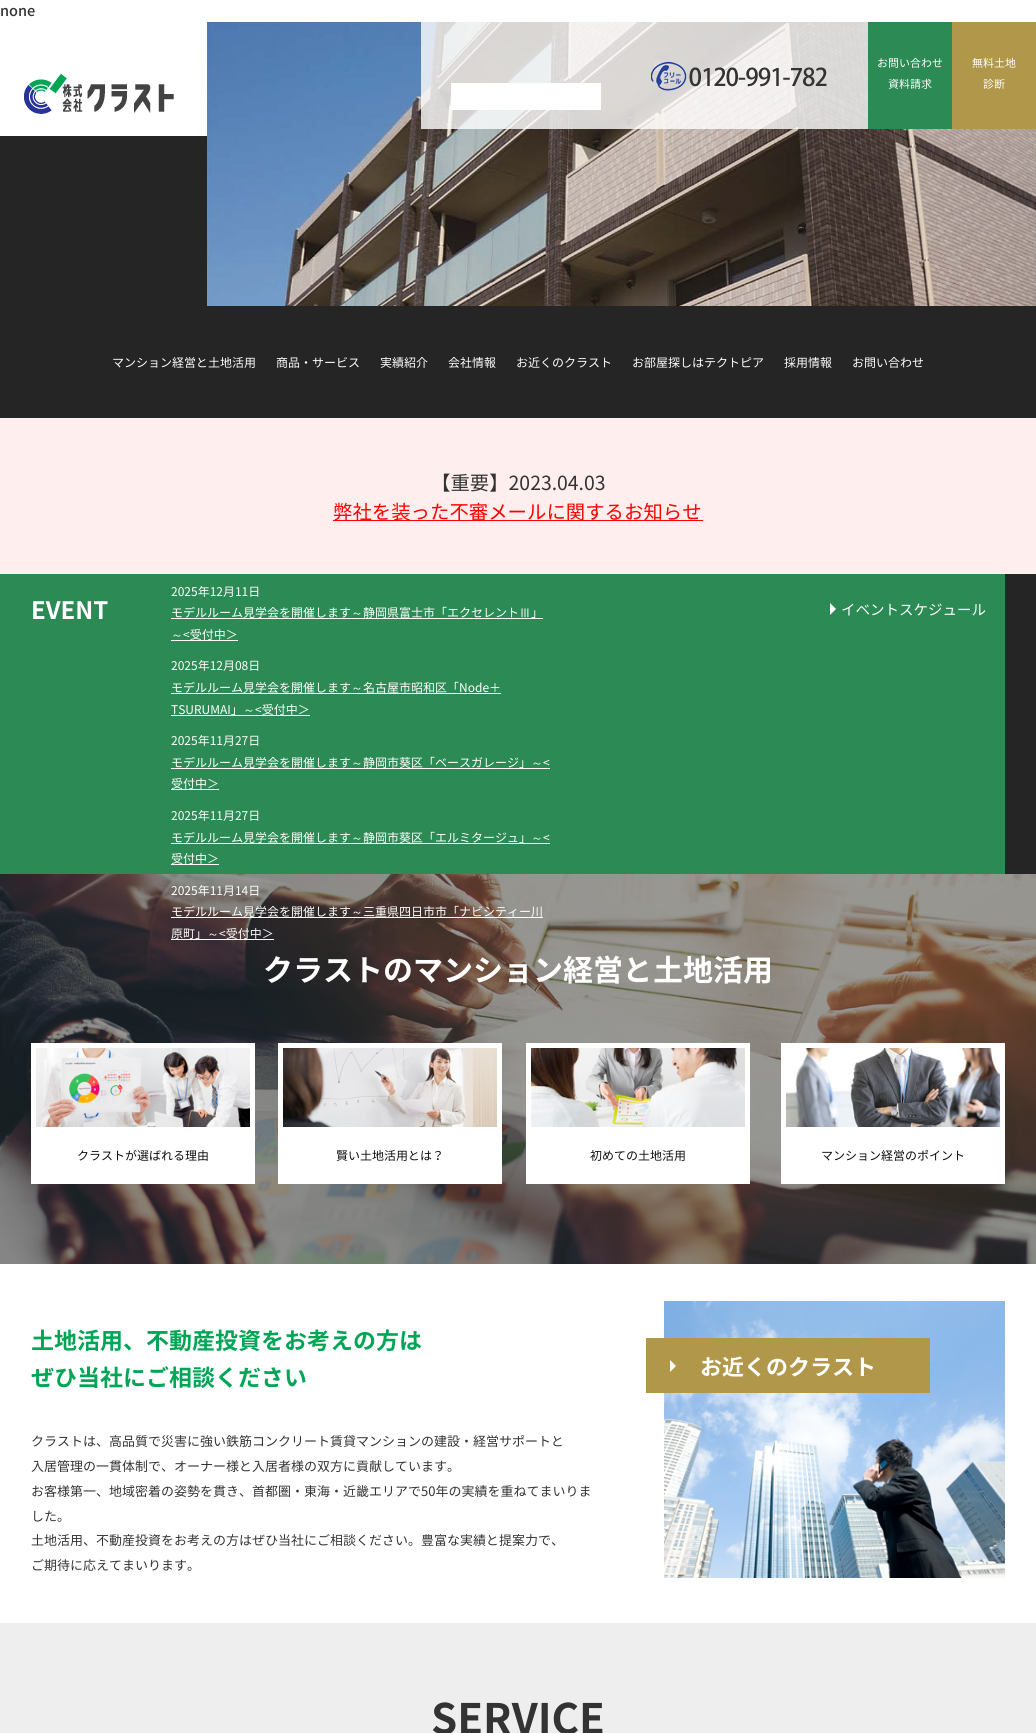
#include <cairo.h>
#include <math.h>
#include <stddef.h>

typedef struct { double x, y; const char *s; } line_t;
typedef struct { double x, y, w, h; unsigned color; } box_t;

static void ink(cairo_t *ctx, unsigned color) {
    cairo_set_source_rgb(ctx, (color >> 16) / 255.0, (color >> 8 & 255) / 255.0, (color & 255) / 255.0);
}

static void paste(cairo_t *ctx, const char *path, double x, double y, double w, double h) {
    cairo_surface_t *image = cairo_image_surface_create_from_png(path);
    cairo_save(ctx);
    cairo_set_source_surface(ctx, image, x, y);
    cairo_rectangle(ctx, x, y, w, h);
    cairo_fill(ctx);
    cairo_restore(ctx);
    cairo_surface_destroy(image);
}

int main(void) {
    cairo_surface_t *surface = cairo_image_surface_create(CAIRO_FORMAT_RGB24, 1036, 1733);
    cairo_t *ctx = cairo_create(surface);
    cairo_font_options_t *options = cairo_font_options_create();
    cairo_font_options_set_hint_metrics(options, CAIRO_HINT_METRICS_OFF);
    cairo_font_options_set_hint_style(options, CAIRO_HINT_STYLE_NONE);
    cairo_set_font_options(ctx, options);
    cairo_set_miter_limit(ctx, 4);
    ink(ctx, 0xFFFFFF);
    cairo_paint(ctx);
    cairo_select_font_face(ctx, "Noto Sans JP Medium", CAIRO_FONT_SLANT_NORMAL, CAIRO_FONT_WEIGHT_NORMAL);
    cairo_set_font_size(ctx, 14.5);
    ink(ctx, 0x333333);
    cairo_move_to(ctx, 0, 16);
    cairo_show_text(ctx, "none");
    paste(ctx, "media/1.png", 207, 22, 829, 284);
    paste(ctx, "media/2.png", 24, 74, 150, 40);
    cairo_set_source_rgba(ctx, 1, 1, 1, 0.8);
    cairo_rectangle(ctx, 421, 22, 447, 107);
    cairo_fill(ctx);
    paste(ctx, "media/3.png", 651, 62, 176, 29);
    ink(ctx, 0x2C8B54);
    cairo_rectangle(ctx, 868, 22, 84, 107);
    cairo_fill(ctx);
    cairo_select_font_face(ctx, "Noto Sans JP", CAIRO_FONT_SLANT_NORMAL, CAIRO_FONT_WEIGHT_NORMAL);
    cairo_set_font_size(ctx, 11);
    ink(ctx, 0xFFFFFF);
    cairo_move_to(ctx, 877, 67);
    cairo_show_text(ctx, "お問い合わせ");
    cairo_move_to(ctx, 888, 88);
    cairo_show_text(ctx, "資料請求");
    ink(ctx, 0xB09749);
    cairo_rectangle(ctx, 952, 22, 84, 107);
    cairo_fill(ctx);
    ink(ctx, 0xFFFFFF);
    cairo_move_to(ctx, 972, 67);
    cairo_show_text(ctx, "無料土地");
    cairo_move_to(ctx, 983, 88);
    cairo_show_text(ctx, "診断");
    {
        static const box_t items[] = {
            {451, 83, 150, 27, 0xFFFFFF},
            {0, 306, 1036, 112, 0x252525},
            {0, 136, 207, 170, 0x252525},
        };
        for (size_t i = 0; i < sizeof items / sizeof *items; i++) {
            ink(ctx, items[i].color);
            cairo_rectangle(ctx, items[i].x, items[i].y, items[i].w, items[i].h);
            cairo_fill(ctx);
        }
    }
    cairo_set_font_size(ctx, 12);
    ink(ctx, 0xFFFFFF);
    {
        static const line_t items[] = {
            {112, 367, "マンション経営と土地活用"},
            {276, 367, "商品・サービス"},
            {380, 367, "実績紹介"},
            {448, 367, "会社情報"},
            {516, 367, "お近くのクラスト"},
            {632, 367, "お部屋探しはテクトピア"},
            {784, 367, "採用情報"},
            {852, 367, "お問い合わせ"},
        };
        for (size_t i = 0; i < sizeof items / sizeof *items; i++) {
            cairo_move_to(ctx, items[i].x, items[i].y);
            cairo_show_text(ctx, items[i].s);
        }
    }
    ink(ctx, 0xFEEEED);
    cairo_rectangle(ctx, 0, 418, 1036, 156);
    cairo_fill(ctx);
    cairo_set_font_size(ctx, 19.4);
    ink(ctx, 0x333333);
    cairo_move_to(ctx, 431, 490);
    cairo_show_text(ctx, "【重要】2023.04.03");
    ink(ctx, 0xFF0000);
    cairo_rectangle(ctx, 333, 520, 370, 1);
    cairo_fill(ctx);
    cairo_move_to(ctx, 333, 519);
    cairo_show_text(ctx, "弊社を装った不審メールに関するお知らせ");
    ink(ctx, 0x2C8B54);
    cairo_rectangle(ctx, 0, 574, 1005, 300);
    cairo_fill(ctx);
    ink(ctx, 0x252525);
    cairo_rectangle(ctx, 1005, 574, 31, 300);
    cairo_fill(ctx);
    cairo_select_font_face(ctx, "Noto Sans JP", CAIRO_FONT_SLANT_NORMAL, CAIRO_FONT_WEIGHT_BOLD);
    cairo_set_font_size(ctx, 24);
    ink(ctx, 0xFFFFFF);
    cairo_move_to(ctx, 31, 619);
    cairo_show_text(ctx, "EVENT");
    cairo_select_font_face(ctx, "Noto Sans JP", CAIRO_FONT_SLANT_NORMAL, CAIRO_FONT_WEIGHT_NORMAL);
    cairo_set_font_size(ctx, 12);
    cairo_move_to(ctx, 171, 596);
    cairo_show_text(ctx, "2025年12月11日");
    cairo_move_to(ctx, 171, 617);
    cairo_show_text(ctx, "モデルルーム見学会を開催します");
    cairo_select_font_face(ctx, "WenQuanYi Zen Hei Medium", CAIRO_FONT_SLANT_NORMAL, CAIRO_FONT_WEIGHT_NORMAL);
    cairo_move_to(ctx, 351, 617);
    cairo_show_text(ctx, "～");
    cairo_select_font_face(ctx, "Noto Sans JP", CAIRO_FONT_SLANT_NORMAL, CAIRO_FONT_WEIGHT_NORMAL);
    cairo_move_to(ctx, 363, 617);
    cairo_show_text(ctx, "静岡県富士市「エクセレント");
    cairo_select_font_face(ctx, "WenQuanYi Zen Hei Medium", CAIRO_FONT_SLANT_NORMAL, CAIRO_FONT_WEIGHT_NORMAL);
    cairo_move_to(ctx, 519, 617);
    cairo_show_text(ctx, "Ⅲ");
    cairo_rectangle(ctx, 171, 618, 372, 1);
    cairo_fill(ctx);
    cairo_select_font_face(ctx, "Noto Sans JP", CAIRO_FONT_SLANT_NORMAL, CAIRO_FONT_WEIGHT_NORMAL);
    cairo_move_to(ctx, 531, 617);
    cairo_show_text(ctx, "」");
    cairo_select_font_face(ctx, "WenQuanYi Zen Hei Medium", CAIRO_FONT_SLANT_NORMAL, CAIRO_FONT_WEIGHT_NORMAL);
    cairo_move_to(ctx, 171, 639);
    cairo_show_text(ctx, "～");
    cairo_rectangle(ctx, 171, 640, 67, 1);
    cairo_fill(ctx);
    cairo_select_font_face(ctx, "Noto Sans JP", CAIRO_FONT_SLANT_NORMAL, CAIRO_FONT_WEIGHT_NORMAL);
    {
        static const line_t items[] = {
            {183, 639, "<受付中＞"},
            {171, 670, "2025年12月08日"},
            {171, 692, "モデルルーム見学会を開催します"},
        };
        for (size_t i = 0; i < sizeof items / sizeof *items; i++) {
            cairo_move_to(ctx, items[i].x, items[i].y);
            cairo_show_text(ctx, items[i].s);
        }
    }
    cairo_select_font_face(ctx, "WenQuanYi Zen Hei Medium", CAIRO_FONT_SLANT_NORMAL, CAIRO_FONT_WEIGHT_NORMAL);
    cairo_move_to(ctx, 351, 692);
    cairo_show_text(ctx, "～");
    cairo_rectangle(ctx, 171, 693, 330, 1);
    cairo_fill(ctx);
    cairo_select_font_face(ctx, "Noto Sans JP", CAIRO_FONT_SLANT_NORMAL, CAIRO_FONT_WEIGHT_NORMAL);
    cairo_move_to(ctx, 363, 692);
    cairo_show_text(ctx, "名古屋市昭和区「Node＋");
    cairo_move_to(ctx, 171, 714);
    cairo_show_text(ctx, "TSURUMAI」");
    cairo_select_font_face(ctx, "WenQuanYi Zen Hei Medium", CAIRO_FONT_SLANT_NORMAL, CAIRO_FONT_WEIGHT_NORMAL);
    cairo_move_to(ctx, 243, 714);
    cairo_show_text(ctx, "～");
    cairo_rectangle(ctx, 171, 715, 139, 1);
    cairo_fill(ctx);
    cairo_select_font_face(ctx, "Noto Sans JP", CAIRO_FONT_SLANT_NORMAL, CAIRO_FONT_WEIGHT_NORMAL);
    {
        static const line_t items[] = {
            {255, 714, "<受付中＞"},
            {171, 745, "2025年11月27日"},
            {171, 767, "モデルルーム見学会を開催します"},
        };
        for (size_t i = 0; i < sizeof items / sizeof *items; i++) {
            cairo_move_to(ctx, items[i].x, items[i].y);
            cairo_show_text(ctx, items[i].s);
        }
    }
    cairo_select_font_face(ctx, "WenQuanYi Zen Hei Medium", CAIRO_FONT_SLANT_NORMAL, CAIRO_FONT_WEIGHT_NORMAL);
    cairo_move_to(ctx, 351, 767);
    cairo_show_text(ctx, "～");
    cairo_rectangle(ctx, 171, 768, 379, 1);
    cairo_fill(ctx);
    cairo_select_font_face(ctx, "Noto Sans JP", CAIRO_FONT_SLANT_NORMAL, CAIRO_FONT_WEIGHT_NORMAL);
    cairo_move_to(ctx, 363, 767);
    cairo_show_text(ctx, "静岡市葵区「ベースガレージ」");
    cairo_select_font_face(ctx, "WenQuanYi Zen Hei Medium", CAIRO_FONT_SLANT_NORMAL, CAIRO_FONT_WEIGHT_NORMAL);
    cairo_move_to(ctx, 531, 767);
    cairo_show_text(ctx, "～");
    cairo_select_font_face(ctx, "Noto Sans JP", CAIRO_FONT_SLANT_NORMAL, CAIRO_FONT_WEIGHT_NORMAL);
    cairo_move_to(ctx, 543, 767);
    cairo_show_text(ctx, "<");
    cairo_move_to(ctx, 171, 788);
    cairo_show_text(ctx, "受付中＞");
    cairo_rectangle(ctx, 171, 789, 48, 1);
    cairo_fill(ctx);
    cairo_move_to(ctx, 171, 820);
    cairo_show_text(ctx, "2025年11月27日");
    cairo_move_to(ctx, 171, 842);
    cairo_show_text(ctx, "モデルルーム見学会を開催します");
    cairo_select_font_face(ctx, "WenQuanYi Zen Hei Medium", CAIRO_FONT_SLANT_NORMAL, CAIRO_FONT_WEIGHT_NORMAL);
    cairo_move_to(ctx, 351, 842);
    cairo_show_text(ctx, "～");
    cairo_rectangle(ctx, 171, 843, 379, 1);
    cairo_fill(ctx);
    cairo_select_font_face(ctx, "Noto Sans JP", CAIRO_FONT_SLANT_NORMAL, CAIRO_FONT_WEIGHT_NORMAL);
    cairo_move_to(ctx, 363, 842);
    cairo_show_text(ctx, "静岡市葵区「エルミタージュ」");
    cairo_select_font_face(ctx, "WenQuanYi Zen Hei Medium", CAIRO_FONT_SLANT_NORMAL, CAIRO_FONT_WEIGHT_NORMAL);
    cairo_move_to(ctx, 531, 842);
    cairo_show_text(ctx, "～");
    cairo_select_font_face(ctx, "Noto Sans JP", CAIRO_FONT_SLANT_NORMAL, CAIRO_FONT_WEIGHT_NORMAL);
    cairo_move_to(ctx, 543, 842);
    cairo_show_text(ctx, "<");
    cairo_move_to(ctx, 171, 863);
    cairo_show_text(ctx, "受付中＞");
    cairo_rectangle(ctx, 171, 864, 48, 1);
    cairo_fill(ctx);
    paste(ctx, "media/4.png", 0, 874, 1036, 390);
    cairo_move_to(ctx, 171, 895);
    cairo_show_text(ctx, "2025年11月14日");
    cairo_move_to(ctx, 171, 916);
    cairo_show_text(ctx, "モデルルーム見学会を開催します");
    cairo_select_font_face(ctx, "WenQuanYi Zen Hei Medium", CAIRO_FONT_SLANT_NORMAL, CAIRO_FONT_WEIGHT_NORMAL);
    cairo_move_to(ctx, 351, 916);
    cairo_show_text(ctx, "～");
    cairo_rectangle(ctx, 171, 917, 372, 1);
    cairo_fill(ctx);
    cairo_select_font_face(ctx, "Noto Sans JP", CAIRO_FONT_SLANT_NORMAL, CAIRO_FONT_WEIGHT_NORMAL);
    cairo_move_to(ctx, 363, 916);
    cairo_show_text(ctx, "三重県四日市市「ナビシティー川");
    cairo_move_to(ctx, 171, 938);
    cairo_show_text(ctx, "原町」");
    cairo_select_font_face(ctx, "WenQuanYi Zen Hei Medium", CAIRO_FONT_SLANT_NORMAL, CAIRO_FONT_WEIGHT_NORMAL);
    cairo_move_to(ctx, 207, 938);
    cairo_show_text(ctx, "～");
    cairo_rectangle(ctx, 171, 939, 103, 1);
    cairo_fill(ctx);
    cairo_select_font_face(ctx, "Noto Sans JP", CAIRO_FONT_SLANT_NORMAL, CAIRO_FONT_WEIGHT_NORMAL);
    cairo_move_to(ctx, 219, 938);
    cairo_show_text(ctx, "<受付中＞");
    cairo_new_path(ctx);
    cairo_move_to(ctx, 830, 615);
    cairo_line_to(ctx, 830, 603);
    cairo_line_to(ctx, 836, 609);
    cairo_close_path(ctx);
    cairo_fill(ctx);
    cairo_set_font_size(ctx, 14.5);
    cairo_move_to(ctx, 841, 615);
    cairo_show_text(ctx, "イベントスケジュール");
    cairo_select_font_face(ctx, "Noto Sans JP", CAIRO_FONT_SLANT_NORMAL, CAIRO_FONT_WEIGHT_BOLD);
    cairo_set_font_size(ctx, 30);
    cairo_move_to(ctx, 263, 981);
    cairo_show_text(ctx, "クラストのマンション経営と土地活用");
    cairo_rectangle(ctx, 31, 1043, 224, 141);
    cairo_fill(ctx);
    paste(ctx, "media/5.png", 36, 1048, 214, 79);
    cairo_select_font_face(ctx, "Noto Sans JP", CAIRO_FONT_SLANT_NORMAL, CAIRO_FONT_WEIGHT_NORMAL);
    cairo_set_font_size(ctx, 12);
    ink(ctx, 0x0D0D0E);
    cairo_move_to(ctx, 77, 1160);
    cairo_show_text(ctx, "クラストが選ばれる理由");
    ink(ctx, 0xFFFFFF);
    cairo_rectangle(ctx, 278, 1043, 224, 141);
    cairo_fill(ctx);
    paste(ctx, "media/6.png", 283, 1048, 214, 79);
    ink(ctx, 0x0D0D0E);
    cairo_move_to(ctx, 336, 1160);
    cairo_show_text(ctx, "賢い土地活用とは？");
    ink(ctx, 0xFFFFFF);
    cairo_rectangle(ctx, 526, 1043, 224, 141);
    cairo_fill(ctx);
    paste(ctx, "media/7.png", 531, 1048, 214, 79);
    ink(ctx, 0x0D0D0E);
    cairo_move_to(ctx, 590, 1160);
    cairo_show_text(ctx, "初めての土地活用");
    ink(ctx, 0xFFFFFF);
    cairo_rectangle(ctx, 781, 1043, 224, 141);
    cairo_fill(ctx);
    paste(ctx, "media/8.png", 786, 1048, 214, 79);
    ink(ctx, 0x0D0D0E);
    cairo_move_to(ctx, 821, 1160);
    cairo_show_text(ctx, "マンション経営のポイント");
    cairo_select_font_face(ctx, "Noto Sans JP", CAIRO_FONT_SLANT_NORMAL, CAIRO_FONT_WEIGHT_BOLD);
    cairo_set_font_size(ctx, 23);
    ink(ctx, 0x00A555);
    cairo_move_to(ctx, 31, 1349);
    cairo_show_text(ctx, "土地活用、不動産投資をお考えの方は");
    cairo_move_to(ctx, 31, 1386);
    cairo_show_text(ctx, "ぜひ当社にご相談ください");
    cairo_select_font_face(ctx, "Noto Sans JP", CAIRO_FONT_SLANT_NORMAL, CAIRO_FONT_WEIGHT_NORMAL);
    cairo_set_font_size(ctx, 13);
    ink(ctx, 0x333333);
    {
        static const line_t items[] = {
            {31, 1446, "クラストは、高品質で災害に強い鉄筋コンクリート賃貸マンションの建設・経営サポートと"},
            {31, 1471, "入居管理の一貫体制で、オーナー様と入居者様の双方に貢献しています。"},
            {31, 1496, "お客様第一、地域密着の姿勢を貫き、首都圏・東海・近畿エリアで50年の実績を重ねてまいりま"},
            {31, 1521, "した。"},
            {31, 1545, "土地活用、不動産投資をお考えの方はぜひ当社にご相談ください。豊富な実績と提案力で、"},
            {31, 1570, "ご期待に応えてまいります。"},
        };
        for (size_t i = 0; i < sizeof items / sizeof *items; i++) {
            cairo_move_to(ctx, items[i].x, items[i].y);
            cairo_show_text(ctx, items[i].s);
        }
    }
    paste(ctx, "media/9.png", 664, 1301, 341, 277);
    ink(ctx, 0xB09749);
    cairo_rectangle(ctx, 646, 1338, 284, 55);
    cairo_fill(ctx);
    ink(ctx, 0xFFFFFF);
    cairo_new_path(ctx);
    cairo_move_to(ctx, 670, 1372);
    cairo_line_to(ctx, 670, 1360);
    cairo_line_to(ctx, 676, 1366);
    cairo_close_path(ctx);
    cairo_fill(ctx);
    cairo_select_font_face(ctx, "Noto Sans JP", CAIRO_FONT_SLANT_NORMAL, CAIRO_FONT_WEIGHT_BOLD);
    cairo_set_font_size(ctx, 22);
    cairo_move_to(ctx, 700, 1375);
    cairo_show_text(ctx, "お近くのクラスト");
    ink(ctx, 0xEEEEEE);
    cairo_rectangle(ctx, 0, 1623, 1036, 110);
    cairo_fill(ctx);
    cairo_set_font_size(ctx, 42);
    ink(ctx, 0x333333);
    cairo_move_to(ctx, 431, 1734);
    cairo_show_text(ctx, "SERVICE");
    cairo_surface_write_to_png(surface, "image.png");
    cairo_font_options_destroy(options);
    cairo_destroy(ctx);
    cairo_surface_destroy(surface);
    return 0;
}
